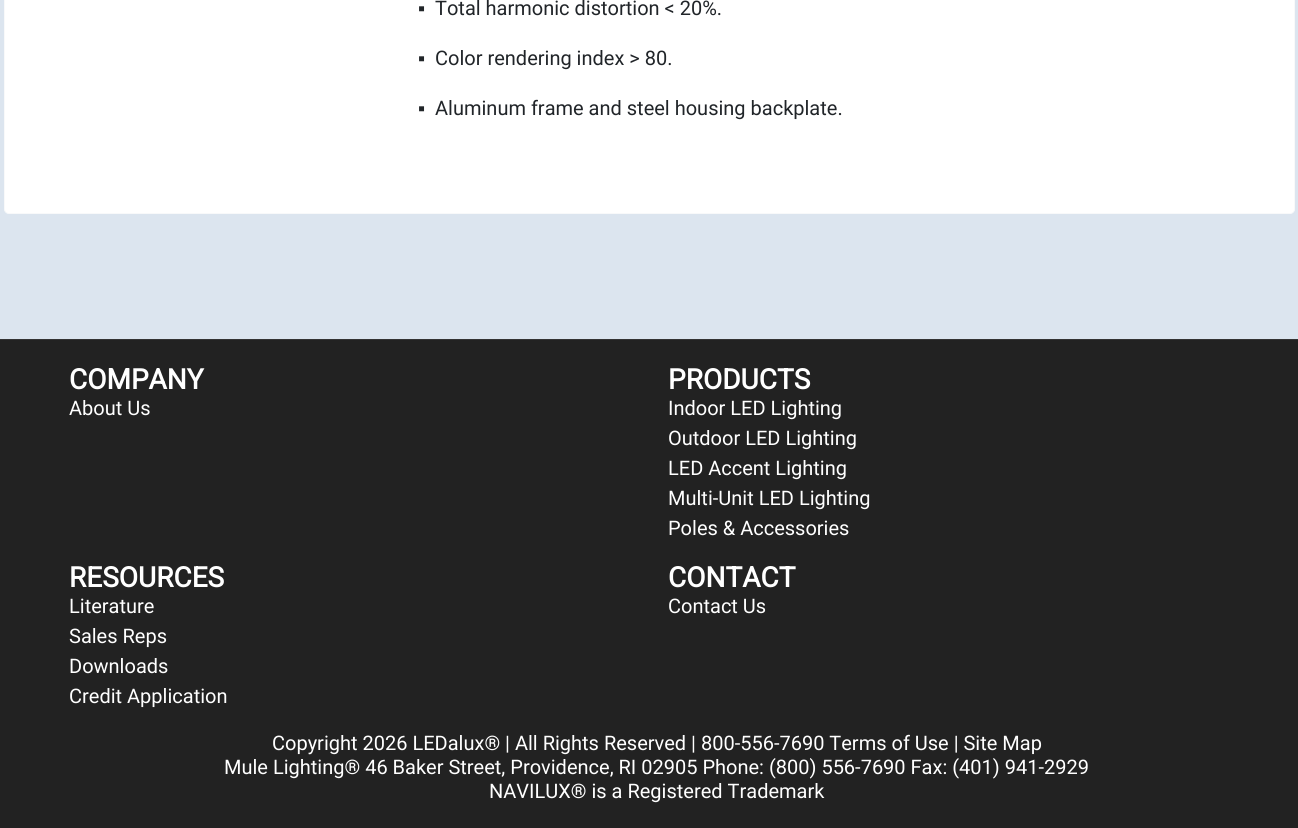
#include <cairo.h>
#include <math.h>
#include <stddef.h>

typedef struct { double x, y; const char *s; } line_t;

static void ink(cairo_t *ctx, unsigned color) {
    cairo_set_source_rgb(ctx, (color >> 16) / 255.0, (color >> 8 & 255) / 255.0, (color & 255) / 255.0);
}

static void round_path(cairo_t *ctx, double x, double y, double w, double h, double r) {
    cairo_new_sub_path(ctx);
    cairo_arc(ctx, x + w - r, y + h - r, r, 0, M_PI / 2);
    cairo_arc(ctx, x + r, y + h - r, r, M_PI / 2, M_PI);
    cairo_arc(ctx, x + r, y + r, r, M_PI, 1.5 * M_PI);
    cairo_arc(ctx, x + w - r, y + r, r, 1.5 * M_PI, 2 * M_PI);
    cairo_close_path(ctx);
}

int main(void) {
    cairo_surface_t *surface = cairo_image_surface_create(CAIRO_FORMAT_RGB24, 1298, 828);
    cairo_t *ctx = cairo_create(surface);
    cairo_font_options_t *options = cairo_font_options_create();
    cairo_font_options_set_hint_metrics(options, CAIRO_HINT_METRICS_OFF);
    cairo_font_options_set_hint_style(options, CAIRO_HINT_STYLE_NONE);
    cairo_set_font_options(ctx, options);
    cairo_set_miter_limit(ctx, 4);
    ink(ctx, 0xDCE5EF);
    cairo_paint(ctx);
    ink(ctx, 0xFFFFFF);
    round_path(ctx, 4.5, -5.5, 1290, 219, 4.5);
    cairo_fill_preserve(ctx);
    ink(ctx, 0xF8F9FA);
    cairo_set_line_width(ctx, 1);
    cairo_stroke(ctx);
    cairo_select_font_face(ctx, "Liberation Sans", CAIRO_FONT_SLANT_NORMAL, CAIRO_FONT_WEIGHT_NORMAL);
    cairo_set_font_size(ctx, 20);
    ink(ctx, 0x212529);
    cairo_move_to(ctx, 418, 15);
    cairo_show_text(ctx, "▪");
    cairo_select_font_face(ctx, "Roboto", CAIRO_FONT_SLANT_NORMAL, CAIRO_FONT_WEIGHT_NORMAL);
    cairo_move_to(ctx, 435, 15);
    cairo_show_text(ctx, "Total harmonic distortion < 20%.");
    cairo_select_font_face(ctx, "Liberation Sans", CAIRO_FONT_SLANT_NORMAL, CAIRO_FONT_WEIGHT_NORMAL);
    cairo_move_to(ctx, 418, 65);
    cairo_show_text(ctx, "▪");
    cairo_select_font_face(ctx, "Roboto", CAIRO_FONT_SLANT_NORMAL, CAIRO_FONT_WEIGHT_NORMAL);
    cairo_move_to(ctx, 435, 65);
    cairo_show_text(ctx, "Color rendering index > 80.");
    cairo_select_font_face(ctx, "Liberation Sans", CAIRO_FONT_SLANT_NORMAL, CAIRO_FONT_WEIGHT_NORMAL);
    cairo_move_to(ctx, 418, 115);
    cairo_show_text(ctx, "▪");
    cairo_select_font_face(ctx, "Roboto", CAIRO_FONT_SLANT_NORMAL, CAIRO_FONT_WEIGHT_NORMAL);
    cairo_move_to(ctx, 435, 115);
    cairo_show_text(ctx, "Aluminum frame and steel housing backplate.");
    ink(ctx, 0x222222);
    cairo_rectangle(ctx, 0, 340, 1298, 488);
    cairo_fill(ctx);
    ink(ctx, 0x333333);
    cairo_rectangle(ctx, 0, 339, 1298, 1);
    cairo_fill(ctx);
    cairo_select_font_face(ctx, "Roboto", CAIRO_FONT_SLANT_NORMAL, CAIRO_FONT_WEIGHT_BOLD);
    cairo_set_font_size(ctx, 28);
    ink(ctx, 0xFFFFFF);
    cairo_move_to(ctx, 69, 389);
    cairo_show_text(ctx, "COMPANY");
    cairo_select_font_face(ctx, "Roboto", CAIRO_FONT_SLANT_NORMAL, CAIRO_FONT_WEIGHT_NORMAL);
    cairo_set_font_size(ctx, 20);
    cairo_move_to(ctx, 69, 415);
    cairo_show_text(ctx, "About Us");
    cairo_select_font_face(ctx, "Roboto", CAIRO_FONT_SLANT_NORMAL, CAIRO_FONT_WEIGHT_BOLD);
    cairo_set_font_size(ctx, 28);
    cairo_move_to(ctx, 668, 389);
    cairo_show_text(ctx, "PRODUCTS");
    cairo_select_font_face(ctx, "Roboto", CAIRO_FONT_SLANT_NORMAL, CAIRO_FONT_WEIGHT_NORMAL);
    cairo_set_font_size(ctx, 20);
    {
        static const line_t items[] = {
            {668, 415, "Indoor LED Lighting"},
            {668, 445, "Outdoor LED Lighting"},
            {668, 475, "LED Accent Lighting"},
            {668, 505, "Multi-Unit LED Lighting"},
            {668, 535, "Poles & Accessories"},
        };
        for (size_t i = 0; i < sizeof items / sizeof *items; i++) {
            cairo_move_to(ctx, items[i].x, items[i].y);
            cairo_show_text(ctx, items[i].s);
        }
    }
    cairo_select_font_face(ctx, "Roboto", CAIRO_FONT_SLANT_NORMAL, CAIRO_FONT_WEIGHT_BOLD);
    cairo_set_font_size(ctx, 28);
    cairo_move_to(ctx, 69, 587);
    cairo_show_text(ctx, "RESOURCES");
    cairo_select_font_face(ctx, "Roboto", CAIRO_FONT_SLANT_NORMAL, CAIRO_FONT_WEIGHT_NORMAL);
    cairo_set_font_size(ctx, 20);
    {
        static const line_t items[] = {
            {69, 613, "Literature"},
            {69, 643, "Sales Reps"},
            {69, 673, "Downloads"},
            {69, 703, "Credit Application"},
        };
        for (size_t i = 0; i < sizeof items / sizeof *items; i++) {
            cairo_move_to(ctx, items[i].x, items[i].y);
            cairo_show_text(ctx, items[i].s);
        }
    }
    cairo_select_font_face(ctx, "Roboto", CAIRO_FONT_SLANT_NORMAL, CAIRO_FONT_WEIGHT_BOLD);
    cairo_set_font_size(ctx, 28);
    cairo_move_to(ctx, 668, 587);
    cairo_show_text(ctx, "CONTACT");
    cairo_select_font_face(ctx, "Roboto", CAIRO_FONT_SLANT_NORMAL, CAIRO_FONT_WEIGHT_NORMAL);
    cairo_set_font_size(ctx, 20);
    {
        static const line_t items[] = {
            {668, 613, "Contact Us"},
            {272, 750, "Copyright 2026 LEDalux® | All Rights Reserved | 800-556-7690 Terms of Use | Site Map"},
            {224, 774, "Mule Lighting® 46 Baker Street, Providence, RI 02905 Phone: (800) 556-7690 Fax: (401) 941-2929"},
            {489, 798, "NAVILUX® is a Registered Trademark"},
        };
        for (size_t i = 0; i < sizeof items / sizeof *items; i++) {
            cairo_move_to(ctx, items[i].x, items[i].y);
            cairo_show_text(ctx, items[i].s);
        }
    }
    cairo_surface_write_to_png(surface, "image.png");
    cairo_font_options_destroy(options);
    cairo_destroy(ctx);
    cairo_surface_destroy(surface);
    return 0;
}
